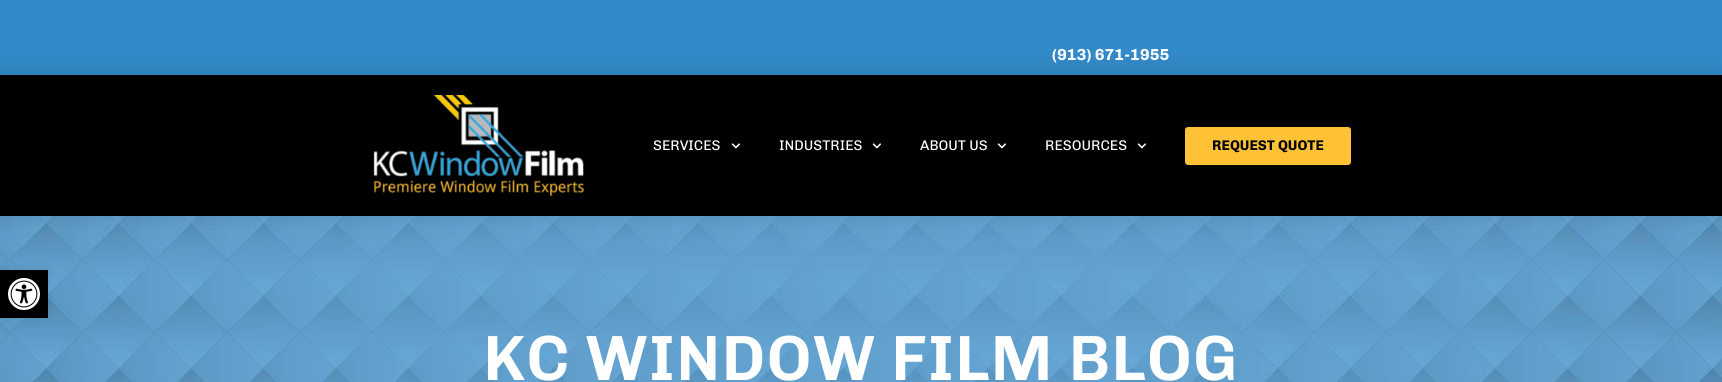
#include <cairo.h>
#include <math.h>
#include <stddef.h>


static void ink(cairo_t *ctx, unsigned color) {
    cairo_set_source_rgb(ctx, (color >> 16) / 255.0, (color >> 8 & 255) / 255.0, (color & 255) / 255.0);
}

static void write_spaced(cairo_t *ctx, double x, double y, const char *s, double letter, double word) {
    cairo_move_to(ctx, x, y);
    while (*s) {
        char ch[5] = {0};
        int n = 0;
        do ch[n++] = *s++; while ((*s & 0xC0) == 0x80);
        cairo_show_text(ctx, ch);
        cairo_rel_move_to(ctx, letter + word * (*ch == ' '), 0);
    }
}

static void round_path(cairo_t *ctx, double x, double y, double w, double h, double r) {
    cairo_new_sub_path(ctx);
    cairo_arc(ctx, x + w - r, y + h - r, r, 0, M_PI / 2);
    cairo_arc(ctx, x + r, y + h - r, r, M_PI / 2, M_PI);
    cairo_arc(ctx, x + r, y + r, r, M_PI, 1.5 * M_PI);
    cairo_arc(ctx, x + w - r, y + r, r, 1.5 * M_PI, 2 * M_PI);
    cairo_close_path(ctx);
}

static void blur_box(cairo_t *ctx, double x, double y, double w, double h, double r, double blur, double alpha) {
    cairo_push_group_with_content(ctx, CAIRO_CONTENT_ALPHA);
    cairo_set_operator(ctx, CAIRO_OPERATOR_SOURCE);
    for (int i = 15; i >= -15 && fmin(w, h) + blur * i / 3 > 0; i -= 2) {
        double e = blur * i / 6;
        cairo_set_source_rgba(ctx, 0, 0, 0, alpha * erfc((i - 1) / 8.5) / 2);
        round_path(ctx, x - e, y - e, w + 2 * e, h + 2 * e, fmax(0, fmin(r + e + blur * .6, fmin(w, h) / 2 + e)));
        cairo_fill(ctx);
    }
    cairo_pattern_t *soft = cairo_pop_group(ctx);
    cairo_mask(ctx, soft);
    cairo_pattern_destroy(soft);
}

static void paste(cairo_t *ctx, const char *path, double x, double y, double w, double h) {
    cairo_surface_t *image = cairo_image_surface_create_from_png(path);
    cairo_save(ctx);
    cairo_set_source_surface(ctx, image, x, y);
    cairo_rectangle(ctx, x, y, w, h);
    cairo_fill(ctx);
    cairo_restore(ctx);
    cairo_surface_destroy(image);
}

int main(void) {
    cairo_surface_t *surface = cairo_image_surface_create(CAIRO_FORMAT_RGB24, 1722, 382);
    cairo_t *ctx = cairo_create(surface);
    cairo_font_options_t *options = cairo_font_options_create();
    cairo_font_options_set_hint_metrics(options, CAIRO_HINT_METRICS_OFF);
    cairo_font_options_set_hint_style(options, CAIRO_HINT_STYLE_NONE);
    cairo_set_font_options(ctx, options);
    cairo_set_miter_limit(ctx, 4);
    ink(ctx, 0xFFFFFF);
    cairo_paint(ctx);
    ink(ctx, 0x338AC8);
    cairo_rectangle(ctx, 0, 0, 1722, 75);
    cairo_fill(ctx);
    cairo_select_font_face(ctx, "Chivo", CAIRO_FONT_SLANT_NORMAL, CAIRO_FONT_WEIGHT_BOLD);
    cairo_set_font_size(ctx, 16);
    ink(ctx, 0xFFFFFF);
    cairo_move_to(ctx, 1052, 60);
    cairo_show_text(ctx, "(913) 671-1955");
    paste(ctx, "media/4.png", 0, 216, 1722, 166);
    ink(ctx, 0x000000);
    blur_box(ctx, 0, 75, 1722, 141, 0, 12, 0.15);
    ink(ctx, 0x000000);
    cairo_rectangle(ctx, 0, 75, 1722, 141);
    cairo_fill(ctx);
    paste(ctx, "media/1.png", 373, 95, 211, 101);
    cairo_select_font_face(ctx, "Chivo", CAIRO_FONT_SLANT_NORMAL, CAIRO_FONT_WEIGHT_NORMAL);
    cairo_set_font_size(ctx, 14);
    ink(ctx, 0xFFFFFF);
    cairo_move_to(ctx, 653, 150);
    cairo_show_text(ctx, "SERVICES");
    paste(ctx, "media/2.png", 731, 143, 9, 6);
    cairo_move_to(ctx, 779, 150);
    cairo_show_text(ctx, "INDUSTRIES");
    paste(ctx, "media/2.png", 872, 143, 9, 6);
    cairo_move_to(ctx, 920, 150);
    cairo_show_text(ctx, "ABOUT US");
    paste(ctx, "media/2.png", 997, 143, 9, 6);
    cairo_move_to(ctx, 1045, 150);
    cairo_show_text(ctx, "RESOURCES");
    paste(ctx, "media/2.png", 1137, 143, 9, 6);
    ink(ctx, 0xFFC237);
    round_path(ctx, 1186, 128, 164, 36, 2);
    cairo_fill_preserve(ctx);
    cairo_stroke(ctx);
    cairo_select_font_face(ctx, "Chivo", CAIRO_FONT_SLANT_NORMAL, CAIRO_FONT_WEIGHT_BOLD);
    ink(ctx, 0x000000);
    cairo_move_to(ctx, 1212, 150);
    cairo_show_text(ctx, "REQUEST QUOTE");
    ink(ctx, 0x000000);
    blur_box(ctx, 0, 270, 48, 48, 0, 4, 0.1);
    ink(ctx, 0x000000);
    cairo_rectangle(ctx, 0, 270, 48, 48);
    cairo_fill(ctx);
    paste(ctx, "media/3.png", 8, 278, 32, 32);
    cairo_select_font_face(ctx, "Chivo SemiBold", CAIRO_FONT_SLANT_NORMAL, CAIRO_FONT_WEIGHT_NORMAL);
    cairo_set_font_size(ctx, 64);
    ink(ctx, 0xFFFFFF);
    write_spaced(ctx, 483, 380, "KC WINDOW FILM BLOG", 1, 0);
    cairo_surface_write_to_png(surface, "image.png");
    cairo_font_options_destroy(options);
    cairo_destroy(ctx);
    cairo_surface_destroy(surface);
    return 0;
}
